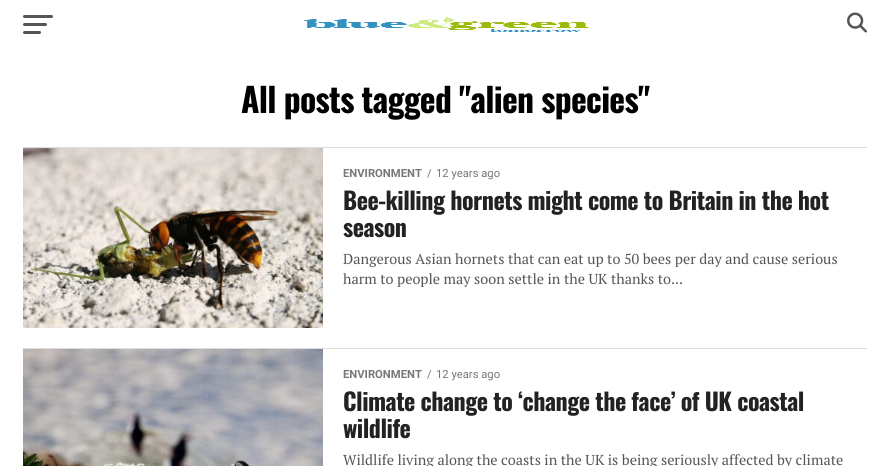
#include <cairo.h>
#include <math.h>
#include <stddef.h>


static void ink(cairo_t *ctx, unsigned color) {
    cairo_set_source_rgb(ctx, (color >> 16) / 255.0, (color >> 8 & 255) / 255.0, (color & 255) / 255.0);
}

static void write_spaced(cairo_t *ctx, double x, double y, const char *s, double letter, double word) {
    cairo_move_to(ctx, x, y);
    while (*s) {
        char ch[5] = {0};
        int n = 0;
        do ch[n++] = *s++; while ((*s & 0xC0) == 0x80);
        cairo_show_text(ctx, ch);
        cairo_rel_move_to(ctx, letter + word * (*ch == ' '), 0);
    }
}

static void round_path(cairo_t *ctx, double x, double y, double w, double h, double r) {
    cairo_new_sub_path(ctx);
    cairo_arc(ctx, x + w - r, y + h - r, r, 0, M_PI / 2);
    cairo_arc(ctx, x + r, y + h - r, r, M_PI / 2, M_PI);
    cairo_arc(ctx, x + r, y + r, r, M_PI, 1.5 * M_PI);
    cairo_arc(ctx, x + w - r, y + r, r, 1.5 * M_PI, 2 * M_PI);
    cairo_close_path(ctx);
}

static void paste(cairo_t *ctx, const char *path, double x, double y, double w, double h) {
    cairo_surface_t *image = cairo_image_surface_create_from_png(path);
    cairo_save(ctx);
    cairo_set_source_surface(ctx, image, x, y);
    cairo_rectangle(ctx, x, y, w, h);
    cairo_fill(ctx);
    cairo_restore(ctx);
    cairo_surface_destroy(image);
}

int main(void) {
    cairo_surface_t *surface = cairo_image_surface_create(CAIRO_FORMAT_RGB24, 890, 466);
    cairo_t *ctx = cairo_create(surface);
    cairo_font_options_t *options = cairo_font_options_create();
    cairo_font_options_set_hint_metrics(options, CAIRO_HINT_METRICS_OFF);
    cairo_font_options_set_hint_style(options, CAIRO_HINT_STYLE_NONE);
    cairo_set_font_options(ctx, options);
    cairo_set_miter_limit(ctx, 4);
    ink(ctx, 0xFFFFFF);
    cairo_paint(ctx);
    ink(ctx, 0x555555);
    round_path(ctx, 23, 15, 30, 3, 1.5);
    cairo_fill(ctx);
    round_path(ctx, 23, 23, 24, 3, 1.5);
    cairo_fill(ctx);
    round_path(ctx, 23, 31, 18, 3, 1.5);
    cairo_fill(ctx);
    paste(ctx, "media/1.png", 303, 17, 286, 15);
    paste(ctx, "media/2.png", 847, 12, 20, 21);
    cairo_select_font_face(ctx, "Oswald", CAIRO_FONT_SLANT_NORMAL, CAIRO_FONT_WEIGHT_BOLD);
    cairo_set_font_size(ctx, 33.6);
    ink(ctx, 0x000000);
    write_spaced(ctx, 241, 113, "All posts tagged \"alien species\"", -0.7, 0);
    ink(ctx, 0xDDDDDD);
    cairo_rectangle(ctx, 23, 147, 844, 1);
    cairo_fill(ctx);
    paste(ctx, "media/3.png", 23, 148, 300, 180);
    cairo_select_font_face(ctx, "Roboto", CAIRO_FONT_SLANT_NORMAL, CAIRO_FONT_WEIGHT_BOLD);
    cairo_set_font_size(ctx, 11.25);
    ink(ctx, 0x777777);
    cairo_move_to(ctx, 343, 177);
    cairo_show_text(ctx, "ENVIRONMENT");
    cairo_select_font_face(ctx, "Roboto", CAIRO_FONT_SLANT_NORMAL, CAIRO_FONT_WEIGHT_NORMAL);
    cairo_move_to(ctx, 427, 177);
    cairo_show_text(ctx, "/");
    cairo_move_to(ctx, 436, 177);
    cairo_show_text(ctx, "12 years ago");
    cairo_select_font_face(ctx, "Oswald", CAIRO_FONT_SLANT_NORMAL, CAIRO_FONT_WEIGHT_BOLD);
    cairo_set_font_size(ctx, 24);
    ink(ctx, 0x222222);
    write_spaced(ctx, 343, 210, "Bee-killing hornets might come to Britain in the hot", -0.48, 0);
    write_spaced(ctx, 343, 237, "season", -0.48, 0);
    cairo_select_font_face(ctx, "PT Serif", CAIRO_FONT_SLANT_NORMAL, CAIRO_FONT_WEIGHT_NORMAL);
    cairo_set_font_size(ctx, 14.4);
    ink(ctx, 0x555555);
    cairo_move_to(ctx, 343, 264);
    cairo_show_text(ctx, "Dangerous Asian hornets that can eat up to 50 bees per day and cause serious");
    cairo_move_to(ctx, 343, 284);
    cairo_show_text(ctx, "harm to people may soon settle in the UK thanks to...");
    ink(ctx, 0xDDDDDD);
    cairo_rectangle(ctx, 23, 348, 844, 1);
    cairo_fill(ctx);
    paste(ctx, "media/4.png", 23, 349, 300, 117);
    cairo_select_font_face(ctx, "Roboto", CAIRO_FONT_SLANT_NORMAL, CAIRO_FONT_WEIGHT_BOLD);
    cairo_set_font_size(ctx, 11.25);
    ink(ctx, 0x777777);
    cairo_move_to(ctx, 343, 378);
    cairo_show_text(ctx, "ENVIRONMENT");
    cairo_select_font_face(ctx, "Roboto", CAIRO_FONT_SLANT_NORMAL, CAIRO_FONT_WEIGHT_NORMAL);
    cairo_move_to(ctx, 427, 378);
    cairo_show_text(ctx, "/");
    cairo_move_to(ctx, 436, 378);
    cairo_show_text(ctx, "12 years ago");
    cairo_select_font_face(ctx, "Oswald", CAIRO_FONT_SLANT_NORMAL, CAIRO_FONT_WEIGHT_BOLD);
    cairo_set_font_size(ctx, 24);
    ink(ctx, 0x222222);
    write_spaced(ctx, 343, 411, "Climate change to ‘change the face’ of UK coastal", -0.48, 0);
    write_spaced(ctx, 343, 438, "wildlife", -0.48, 0);
    cairo_select_font_face(ctx, "PT Serif", CAIRO_FONT_SLANT_NORMAL, CAIRO_FONT_WEIGHT_NORMAL);
    cairo_set_font_size(ctx, 14.4);
    ink(ctx, 0x555555);
    cairo_move_to(ctx, 343, 465);
    cairo_show_text(ctx, "Wildlife living along the coasts in the UK is being seriously affected by climate");
    cairo_surface_write_to_png(surface, "image.png");
    cairo_font_options_destroy(options);
    cairo_destroy(ctx);
    cairo_surface_destroy(surface);
    return 0;
}
